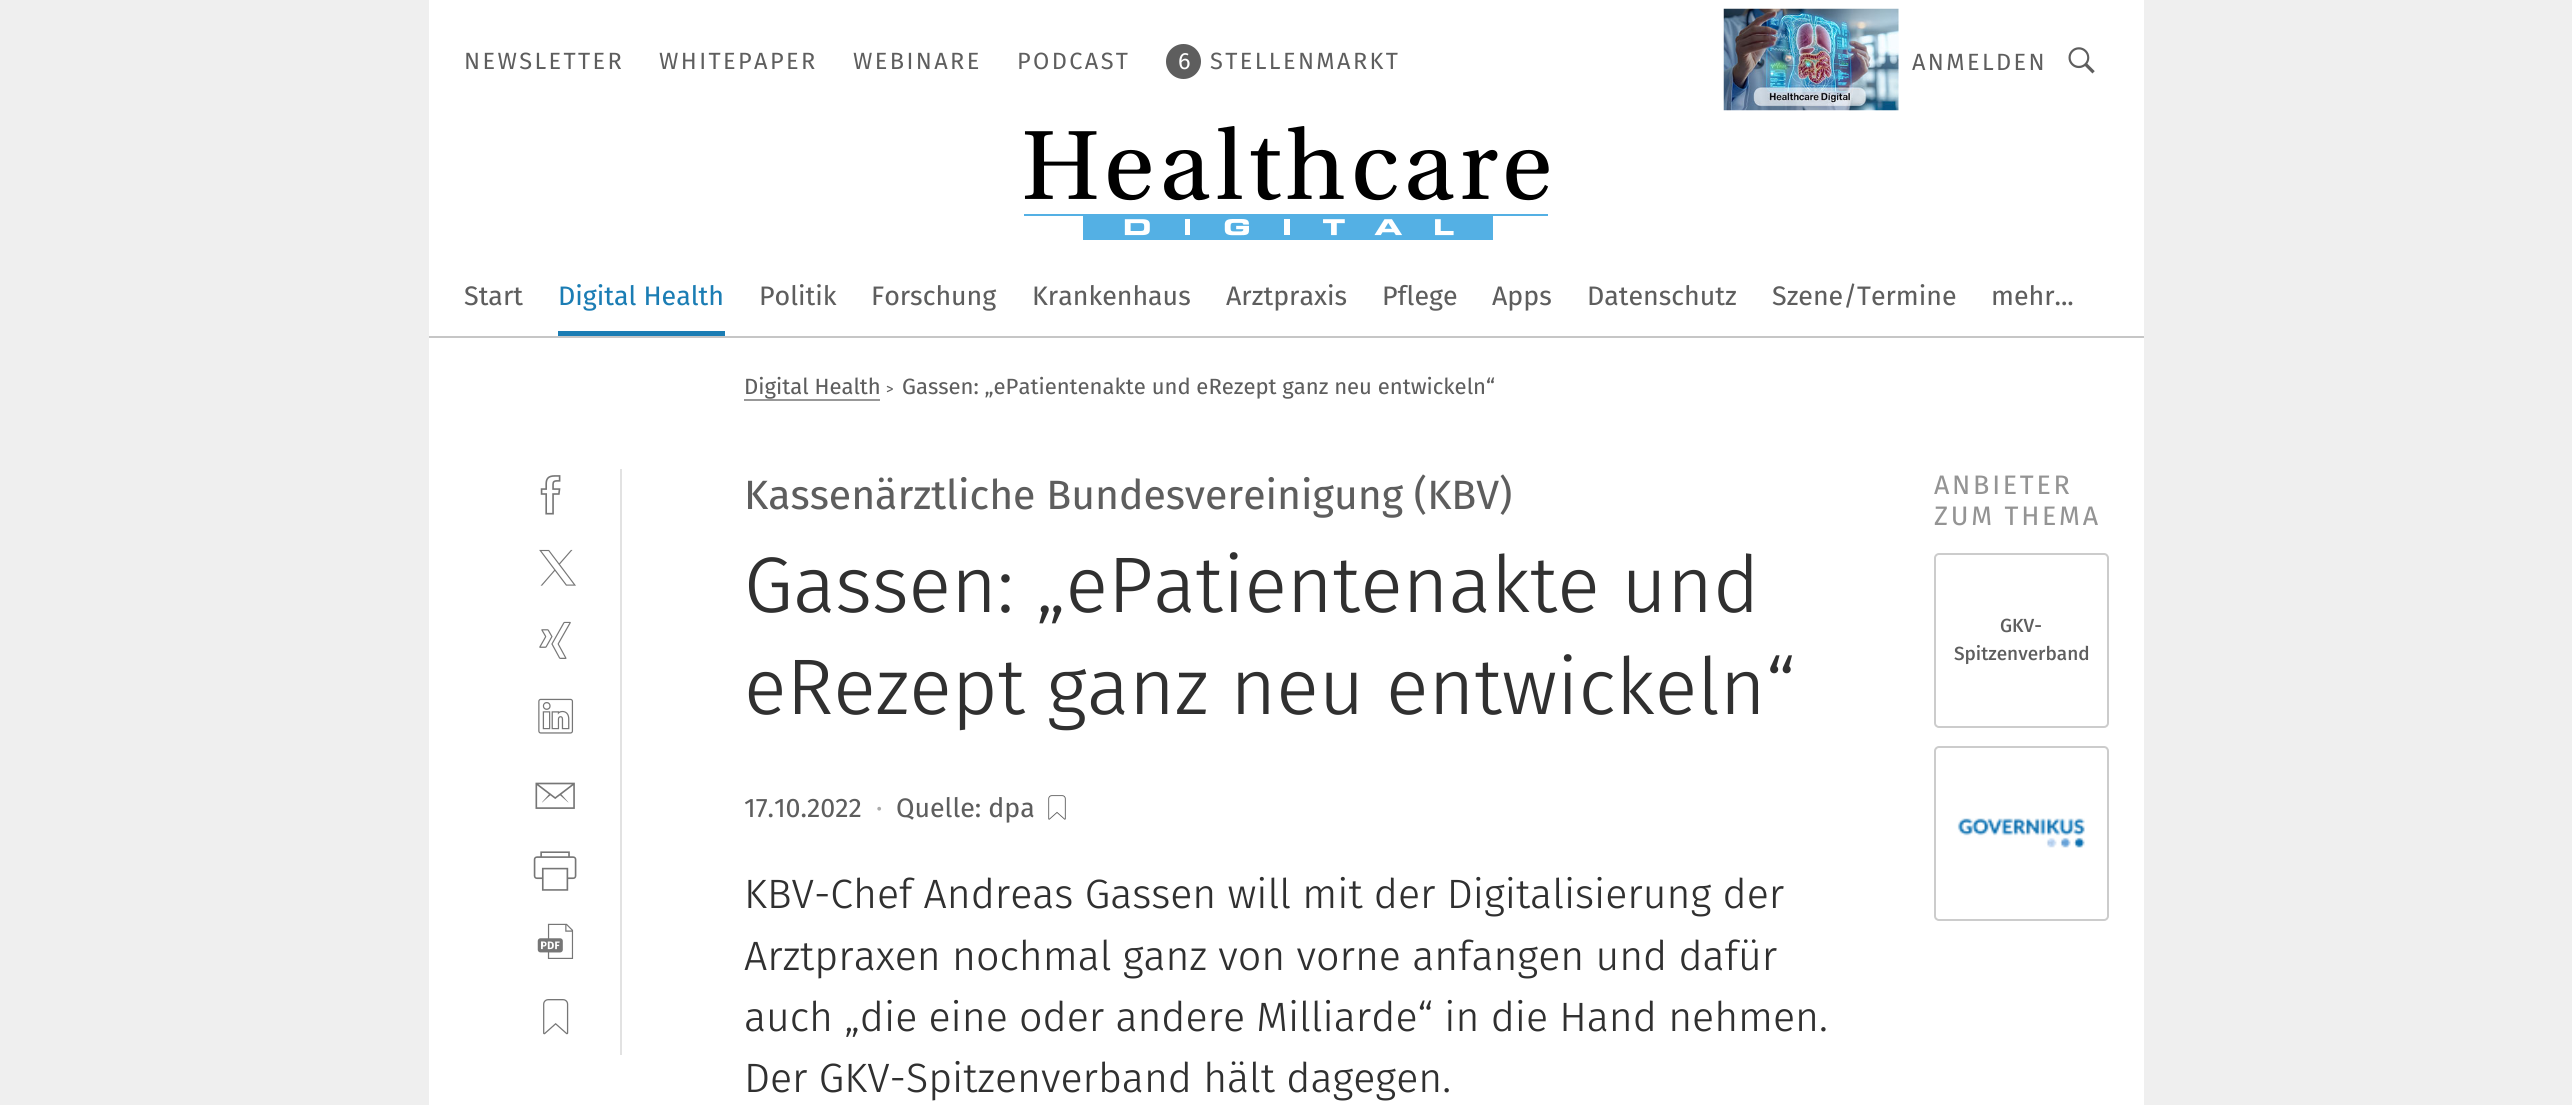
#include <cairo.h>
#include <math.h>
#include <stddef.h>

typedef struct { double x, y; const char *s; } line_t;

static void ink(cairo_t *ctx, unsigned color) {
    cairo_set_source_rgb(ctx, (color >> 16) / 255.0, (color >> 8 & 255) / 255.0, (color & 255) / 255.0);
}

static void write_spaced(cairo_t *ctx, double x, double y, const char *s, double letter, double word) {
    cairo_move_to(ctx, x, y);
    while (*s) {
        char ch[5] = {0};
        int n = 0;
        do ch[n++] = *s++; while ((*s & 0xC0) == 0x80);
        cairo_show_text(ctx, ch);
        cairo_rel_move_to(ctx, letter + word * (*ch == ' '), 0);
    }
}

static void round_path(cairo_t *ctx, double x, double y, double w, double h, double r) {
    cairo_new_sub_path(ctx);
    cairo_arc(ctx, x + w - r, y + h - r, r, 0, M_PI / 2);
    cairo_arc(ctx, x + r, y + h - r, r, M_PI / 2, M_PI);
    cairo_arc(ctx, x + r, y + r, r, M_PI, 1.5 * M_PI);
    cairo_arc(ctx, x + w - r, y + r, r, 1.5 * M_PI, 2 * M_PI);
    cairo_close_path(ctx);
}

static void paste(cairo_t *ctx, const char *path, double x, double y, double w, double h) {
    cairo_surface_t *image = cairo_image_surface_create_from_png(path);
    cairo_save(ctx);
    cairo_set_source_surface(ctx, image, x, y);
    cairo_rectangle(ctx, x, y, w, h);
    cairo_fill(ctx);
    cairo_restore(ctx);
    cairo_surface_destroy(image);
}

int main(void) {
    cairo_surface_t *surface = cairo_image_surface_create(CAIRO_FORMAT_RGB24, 2572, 1105);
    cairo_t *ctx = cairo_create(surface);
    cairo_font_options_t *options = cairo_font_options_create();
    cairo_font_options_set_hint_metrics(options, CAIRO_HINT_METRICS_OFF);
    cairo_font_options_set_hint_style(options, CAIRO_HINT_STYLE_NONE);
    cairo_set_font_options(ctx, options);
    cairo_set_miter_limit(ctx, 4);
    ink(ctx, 0xEFEFEF);
    cairo_paint(ctx);
    ink(ctx, 0xFFFFFF);
    cairo_rectangle(ctx, 429, 0, 1715, 1105);
    cairo_fill(ctx);
    ink(ctx, 0xC6C6C6);
    cairo_rectangle(ctx, 429, 336, 1715, 2);
    cairo_fill(ctx);
    cairo_select_font_face(ctx, "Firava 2", CAIRO_FONT_SLANT_NORMAL, CAIRO_FONT_WEIGHT_NORMAL);
    cairo_set_font_size(ctx, 23.5);
    ink(ctx, 0x5E5E5E);
    {
        static const line_t items[] = {
            {464, 69, "NEWSLETTER"},
            {659, 69, "WHITEPAPER"},
            {853, 69, "WEBINARE"},
            {1017, 69, "PODCAST"},
        };
        for (size_t i = 0; i < sizeof items / sizeof *items; i++) {
            write_spaced(ctx, items[i].x, items[i].y, items[i].s, 2.4, 0);
        }
    }
    cairo_new_path(ctx);
    cairo_arc(ctx, 1183.5, 61.5, 17.5, 0, 2 * M_PI);
    cairo_fill(ctx);
    ink(ctx, 0xFFFFFF);
    write_spaced(ctx, 1178, 69, "6", 2.4, 0);
    ink(ctx, 0x5E5E5E);
    write_spaced(ctx, 1210, 69, "STELLENMARKT", 2.4, 0);
    paste(ctx, "media/1.png", 1723, 8, 176, 103);
    write_spaced(ctx, 1912, 70, "ANMELDEN", 2.4, 0);
    paste(ctx, "media/2.png", 2068, 47, 27, 27);
    paste(ctx, "media/3.png", 1024, 126, 525, 114);
    cairo_select_font_face(ctx, "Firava", CAIRO_FONT_SLANT_NORMAL, CAIRO_FONT_WEIGHT_NORMAL);
    cairo_set_font_size(ctx, 26.75);
    cairo_move_to(ctx, 464, 305);
    cairo_show_text(ctx, "Start");
    ink(ctx, 0x1B7DB4);
    cairo_rectangle(ctx, 558, 331, 167, 5);
    cairo_fill(ctx);
    cairo_move_to(ctx, 558, 305);
    cairo_show_text(ctx, "Digital Health");
    ink(ctx, 0x5E5E5E);
    {
        static const line_t items[] = {
            {759, 305, "Politik"},
            {871, 305, "Forschung"},
            {1032, 305, "Krankenhaus"},
            {1226, 305, "Arztpraxis"},
            {1382, 305, "Pflege"},
            {1492, 305, "Apps"},
            {1587, 305, "Datenschutz"},
            {1772, 305, "Szene/Termine"},
            {1991, 305, "mehr..."},
        };
        for (size_t i = 0; i < sizeof items / sizeof *items; i++) {
            cairo_move_to(ctx, items[i].x, items[i].y);
            cairo_show_text(ctx, items[i].s);
        }
    }
    cairo_set_font_size(ctx, 22.05);
    cairo_move_to(ctx, 744, 394);
    cairo_show_text(ctx, "Digital Health");
    ink(ctx, 0x989898);
    cairo_rectangle(ctx, 744, 399, 136, 2);
    cairo_fill(ctx);
    cairo_set_font_size(ctx, 15);
    ink(ctx, 0x5E5E5E);
    cairo_move_to(ctx, 886, 394);
    cairo_show_text(ctx, ">");
    cairo_set_font_size(ctx, 22.05);
    cairo_move_to(ctx, 902, 394);
    cairo_show_text(ctx, "Gassen: „ePatientenakte und eRezept ganz neu entwickeln“");
    ink(ctx, 0xE2E2E2);
    cairo_rectangle(ctx, 620, 469, 2, 586);
    cairo_fill(ctx);
    paste(ctx, "media/4.png", 540, 475, 21, 40);
    paste(ctx, "media/5.png", 539, 549, 37, 37);
    paste(ctx, "media/6.png", 539, 621, 32, 38);
    paste(ctx, "media/7.png", 538, 698, 36, 36);
    paste(ctx, "media/8.png", 535, 782, 40, 27);
    paste(ctx, "media/9.png", 533, 851, 44, 40);
    paste(ctx, "media/10.png", 537, 923, 37, 36);
    paste(ctx, "media/11.png", 543, 999, 26, 36);
    cairo_set_font_size(ctx, 40.95);
    ink(ctx, 0x5E5E5E);
    cairo_move_to(ctx, 744, 509);
    cairo_show_text(ctx, "Kassenärztliche Bundesvereinigung (KBV)");
    cairo_select_font_face(ctx, "Firava Light", CAIRO_FONT_SLANT_NORMAL, CAIRO_FONT_WEIGHT_NORMAL);
    cairo_set_font_size(ctx, 78.75);
    ink(ctx, 0x303030);
    cairo_move_to(ctx, 744, 612);
    cairo_show_text(ctx, "Gassen: „ePatientenakte und");
    cairo_move_to(ctx, 744, 714);
    cairo_show_text(ctx, "eRezept ganz neu entwickeln“");
    cairo_select_font_face(ctx, "Firava", CAIRO_FONT_SLANT_NORMAL, CAIRO_FONT_WEIGHT_NORMAL);
    cairo_set_font_size(ctx, 26.75);
    ink(ctx, 0x949494);
    write_spaced(ctx, 1934, 494, "ANBIETER", 2.75, 0);
    write_spaced(ctx, 1934, 525, "ZUM THEMA", 2.75, 0);
    round_path(ctx, 1935, 554, 173, 173, 4);
    ink(ctx, 0xCCCCCC);
    cairo_stroke(ctx);
    cairo_select_font_face(ctx, "Firava Medium", CAIRO_FONT_SLANT_NORMAL, CAIRO_FONT_WEIGHT_NORMAL);
    cairo_set_font_size(ctx, 19);
    ink(ctx, 0x5E5E5E);
    cairo_move_to(ctx, 2000, 632);
    cairo_show_text(ctx, "GKV-");
    cairo_move_to(ctx, 1954, 660);
    cairo_show_text(ctx, "Spitzenverband");
    round_path(ctx, 1935, 747, 173, 173, 4);
    ink(ctx, 0xCCCCCC);
    cairo_stroke(ctx);
    paste(ctx, "media/12.png", 1957, 818, 128, 30);
    cairo_select_font_face(ctx, "Firava", CAIRO_FONT_SLANT_NORMAL, CAIRO_FONT_WEIGHT_NORMAL);
    cairo_set_font_size(ctx, 26.75);
    ink(ctx, 0x5E5E5E);
    cairo_move_to(ctx, 744, 817);
    cairo_show_text(ctx, "17.10.2022");
    ink(ctx, 0xABABAB);
    cairo_move_to(ctx, 876, 817);
    cairo_show_text(ctx, "·");
    ink(ctx, 0x5E5E5E);
    cairo_move_to(ctx, 896, 817);
    cairo_show_text(ctx, "Quelle: dpa");
    paste(ctx, "media/13.png", 1048, 795, 18, 25);
    cairo_select_font_face(ctx, "Firava Light", CAIRO_FONT_SLANT_NORMAL, CAIRO_FONT_WEIGHT_NORMAL);
    cairo_set_font_size(ctx, 40.95);
    ink(ctx, 0x303030);
    {
        static const line_t items[] = {
            {744, 908, "KBV-Chef Andreas Gassen will mit der Digitalisierung der"},
            {744, 970, "Arztpraxen nochmal ganz von vorne anfangen und dafür"},
            {744, 1031, "auch „die eine oder andere Milliarde“ in die Hand nehmen."},
            {744, 1092, "Der GKV-Spitzenverband hält dagegen."},
        };
        for (size_t i = 0; i < sizeof items / sizeof *items; i++) {
            cairo_move_to(ctx, items[i].x, items[i].y);
            cairo_show_text(ctx, items[i].s);
        }
    }
    cairo_surface_write_to_png(surface, "image.png");
    cairo_font_options_destroy(options);
    cairo_destroy(ctx);
    cairo_surface_destroy(surface);
    return 0;
}
